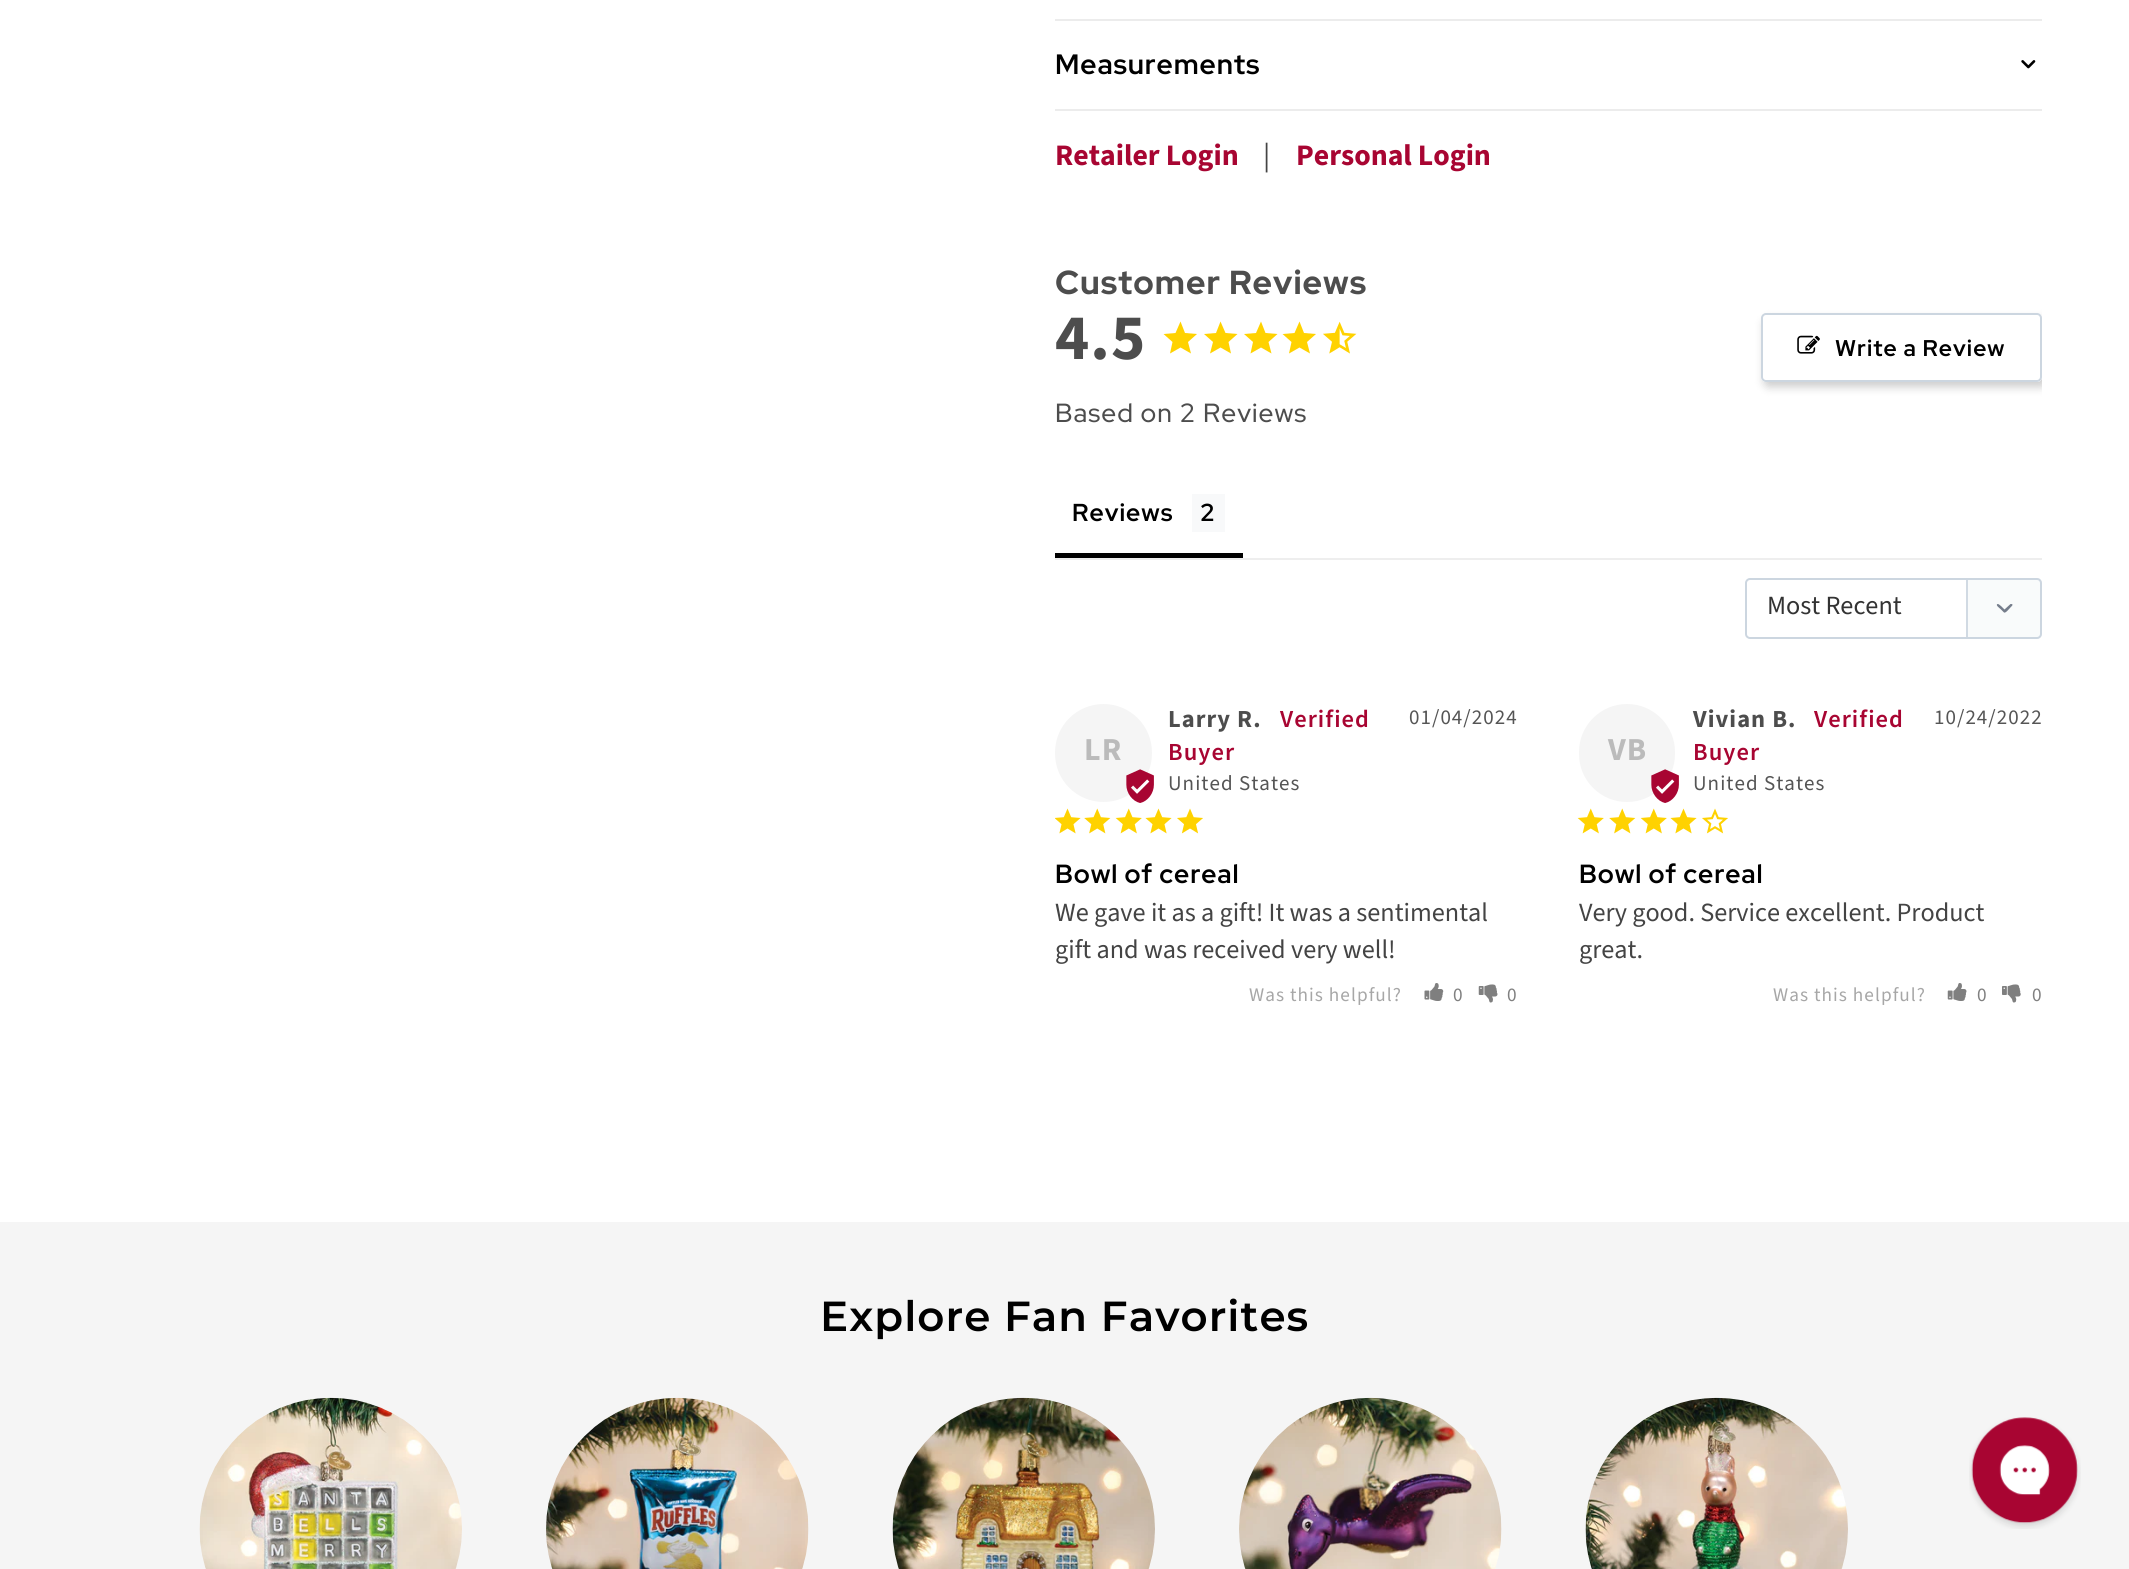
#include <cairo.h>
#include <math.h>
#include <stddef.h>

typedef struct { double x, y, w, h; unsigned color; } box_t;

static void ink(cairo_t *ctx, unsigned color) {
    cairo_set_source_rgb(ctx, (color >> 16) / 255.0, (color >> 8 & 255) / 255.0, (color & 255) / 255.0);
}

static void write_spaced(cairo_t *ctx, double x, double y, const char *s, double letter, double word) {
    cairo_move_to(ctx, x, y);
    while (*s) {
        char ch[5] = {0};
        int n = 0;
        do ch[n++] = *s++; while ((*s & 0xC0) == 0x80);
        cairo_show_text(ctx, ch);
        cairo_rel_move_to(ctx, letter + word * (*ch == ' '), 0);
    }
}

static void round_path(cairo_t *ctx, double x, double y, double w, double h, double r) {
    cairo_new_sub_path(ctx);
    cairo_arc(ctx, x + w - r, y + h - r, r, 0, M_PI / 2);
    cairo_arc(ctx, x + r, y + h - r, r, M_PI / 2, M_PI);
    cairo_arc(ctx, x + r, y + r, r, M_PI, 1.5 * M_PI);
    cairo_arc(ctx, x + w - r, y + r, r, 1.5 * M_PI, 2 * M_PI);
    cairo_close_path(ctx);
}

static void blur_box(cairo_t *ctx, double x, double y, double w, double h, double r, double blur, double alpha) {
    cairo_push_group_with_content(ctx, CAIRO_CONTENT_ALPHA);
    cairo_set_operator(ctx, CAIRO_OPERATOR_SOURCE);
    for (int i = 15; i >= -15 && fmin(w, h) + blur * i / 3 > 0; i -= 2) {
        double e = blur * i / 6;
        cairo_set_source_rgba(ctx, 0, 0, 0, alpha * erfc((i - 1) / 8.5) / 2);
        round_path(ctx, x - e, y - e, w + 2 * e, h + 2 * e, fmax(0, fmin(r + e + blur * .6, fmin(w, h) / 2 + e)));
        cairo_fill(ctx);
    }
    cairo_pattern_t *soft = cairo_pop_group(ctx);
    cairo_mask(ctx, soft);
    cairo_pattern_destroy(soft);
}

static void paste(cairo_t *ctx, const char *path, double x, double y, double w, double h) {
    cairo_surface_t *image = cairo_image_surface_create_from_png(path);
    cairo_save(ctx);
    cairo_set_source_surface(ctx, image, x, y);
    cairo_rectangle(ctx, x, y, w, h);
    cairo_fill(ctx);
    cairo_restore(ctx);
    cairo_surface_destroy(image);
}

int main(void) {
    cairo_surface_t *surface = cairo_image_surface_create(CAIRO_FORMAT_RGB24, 2129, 1569);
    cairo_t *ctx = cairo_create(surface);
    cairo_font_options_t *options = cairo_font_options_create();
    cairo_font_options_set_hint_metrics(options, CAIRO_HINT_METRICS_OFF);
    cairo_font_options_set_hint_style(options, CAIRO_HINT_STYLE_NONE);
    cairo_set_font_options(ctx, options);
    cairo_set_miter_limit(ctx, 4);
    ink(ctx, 0xFFFFFF);
    cairo_paint(ctx);
    {
        static const box_t items[] = {
            {1966, 578, 1, 61, 0xD1DAE3},
            {1055, 19, 987, 2, 0xECECEC},
            {1055, 109, 987, 2, 0xECECEC},
        };
        for (size_t i = 0; i < sizeof items / sizeof *items; i++) {
            ink(ctx, items[i].color);
            cairo_rectangle(ctx, items[i].x, items[i].y, items[i].w, items[i].h);
            cairo_fill(ctx);
        }
    }
    cairo_select_font_face(ctx, "Red Hat Display", CAIRO_FONT_SLANT_NORMAL, CAIRO_FONT_WEIGHT_BOLD);
    cairo_set_font_size(ctx, 28);
    ink(ctx, 0x000000);
    write_spaced(ctx, 1055, 74, "Measurements", 0.9, 0);
    paste(ctx, "media/1.png", 2021, 60, 15, 9);
    cairo_select_font_face(ctx, "Source Sans Pro", CAIRO_FONT_SLANT_NORMAL, CAIRO_FONT_WEIGHT_BOLD);
    cairo_set_font_size(ctx, 29.75);
    ink(ctx, 0xA80532);
    cairo_move_to(ctx, 1055, 165);
    cairo_show_text(ctx, "Retailer Login");
    cairo_select_font_face(ctx, "Source Sans Pro", CAIRO_FONT_SLANT_NORMAL, CAIRO_FONT_WEIGHT_NORMAL);
    ink(ctx, 0x444444);
    write_spaced(ctx, 1263, 165, "|", 1.05, 0);
    cairo_select_font_face(ctx, "Source Sans Pro", CAIRO_FONT_SLANT_NORMAL, CAIRO_FONT_WEIGHT_BOLD);
    ink(ctx, 0xA80532);
    cairo_move_to(ctx, 1296, 165);
    cairo_show_text(ctx, "Personal Login");
    cairo_select_font_face(ctx, "Red Hat Display ExtraBold", CAIRO_FONT_SLANT_NORMAL, CAIRO_FONT_WEIGHT_NORMAL);
    cairo_set_font_size(ctx, 33.25);
    ink(ctx, 0x4D4D4D);
    write_spaced(ctx, 1055, 294, "Customer Reviews", 1.05, 0);
    cairo_select_font_face(ctx, "Source Sans Pro", CAIRO_FONT_SLANT_NORMAL, CAIRO_FONT_WEIGHT_BOLD);
    cairo_set_font_size(ctx, 65);
    write_spaced(ctx, 1055, 359, "4.5", 1.05, 0);
    ink(ctx, 0xFFD200);
    cairo_new_path(ctx);
    cairo_move_to(ctx, 1180.5, 347.5);
    cairo_line_to(ctx, 1170, 353.5);
    cairo_line_to(ctx, 1172.5, 342);
    cairo_line_to(ctx, 1163.5, 334);
    cairo_line_to(ctx, 1175.5, 333);
    cairo_line_to(ctx, 1180.5, 321.5);
    cairo_line_to(ctx, 1185, 333);
    cairo_line_to(ctx, 1197, 334);
    cairo_line_to(ctx, 1188, 342);
    cairo_line_to(ctx, 1191, 353.5);
    cairo_close_path(ctx);
    cairo_fill(ctx);
    cairo_new_path(ctx);
    cairo_move_to(ctx, 1220.5, 347.5);
    cairo_line_to(ctx, 1210, 353.5);
    cairo_line_to(ctx, 1213, 342);
    cairo_line_to(ctx, 1204, 334);
    cairo_line_to(ctx, 1216, 333);
    cairo_line_to(ctx, 1220.5, 321.5);
    cairo_line_to(ctx, 1225.5, 333);
    cairo_line_to(ctx, 1237.5, 334);
    cairo_line_to(ctx, 1228.5, 342);
    cairo_line_to(ctx, 1231, 353.5);
    cairo_close_path(ctx);
    cairo_fill(ctx);
    cairo_new_path(ctx);
    cairo_move_to(ctx, 1261, 347.5);
    cairo_line_to(ctx, 1250.5, 353.5);
    cairo_line_to(ctx, 1253, 342);
    cairo_line_to(ctx, 1244, 334);
    cairo_line_to(ctx, 1256, 333);
    cairo_line_to(ctx, 1261, 321.5);
    cairo_line_to(ctx, 1265.5, 333);
    cairo_line_to(ctx, 1277.5, 334);
    cairo_line_to(ctx, 1268.5, 342);
    cairo_line_to(ctx, 1271.5, 353.5);
    cairo_close_path(ctx);
    cairo_fill(ctx);
    cairo_new_path(ctx);
    cairo_move_to(ctx, 1299.5, 347.5);
    cairo_line_to(ctx, 1289, 353.5);
    cairo_line_to(ctx, 1291.5, 342);
    cairo_line_to(ctx, 1282.5, 334);
    cairo_line_to(ctx, 1294.5, 333);
    cairo_line_to(ctx, 1299.5, 321.5);
    cairo_line_to(ctx, 1304, 333);
    cairo_line_to(ctx, 1316, 334);
    cairo_line_to(ctx, 1307, 342);
    cairo_line_to(ctx, 1310, 353.5);
    cairo_close_path(ctx);
    cairo_fill(ctx);
    paste(ctx, "media/2.png", 1323, 321, 34, 33);
    cairo_select_font_face(ctx, "Red Hat Display Medium", CAIRO_FONT_SLANT_NORMAL, CAIRO_FONT_WEIGHT_NORMAL);
    cairo_set_font_size(ctx, 26.25);
    ink(ctx, 0x4D4D4D);
    write_spaced(ctx, 1055, 422, "Based on 2 Reviews", 1.05, 0);
    cairo_save(ctx);
    cairo_rectangle(ctx, 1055, 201, 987, 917);
    cairo_clip(ctx);
    cairo_set_fill_rule(ctx, CAIRO_FILL_RULE_EVEN_ODD);
    cairo_new_path(ctx);
    cairo_move_to(ctx, 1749, 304);
    cairo_line_to(ctx, 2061, 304);
    cairo_line_to(ctx, 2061, 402);
    cairo_line_to(ctx, 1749, 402);
    cairo_close_path(ctx);
    cairo_move_to(ctx, 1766, 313);
    cairo_line_to(ctx, 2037, 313);
    cairo_curve_to(ctx, 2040, 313, 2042, 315, 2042, 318);
    cairo_line_to(ctx, 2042, 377);
    cairo_curve_to(ctx, 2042, 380, 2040, 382, 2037, 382);
    cairo_line_to(ctx, 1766, 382);
    cairo_curve_to(ctx, 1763, 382, 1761, 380, 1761, 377);
    cairo_line_to(ctx, 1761, 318);
    cairo_curve_to(ctx, 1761, 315, 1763, 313, 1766, 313);
    cairo_close_path(ctx);
    cairo_clip(ctx);
    ink(ctx, 0x888888);
    blur_box(ctx, 1764, 319, 282, 68, 5, 4.5, 0.42);
    cairo_restore(ctx);
    round_path(ctx, 1762, 314, 279, 67, 4);
    ink(ctx, 0xCCD6E0);
    cairo_stroke(ctx);
    paste(ctx, "media/3.png", 1797, 335, 23, 19);
    cairo_select_font_face(ctx, "Red Hat Display", CAIRO_FONT_SLANT_NORMAL, CAIRO_FONT_WEIGHT_BOLD);
    cairo_set_font_size(ctx, 22.75);
    ink(ctx, 0x000000);
    write_spaced(ctx, 1835, 356, "Write a Review", 1.05, 0);
    ink(ctx, 0xEEEEEE);
    cairo_rectangle(ctx, 1055, 558, 987, 2);
    cairo_fill(ctx);
    ink(ctx, 0x000000);
    cairo_rectangle(ctx, 1055, 553, 188, 5);
    cairo_fill(ctx);
    cairo_set_font_size(ctx, 24.5);
    write_spaced(ctx, 1072, 521, "Reviews", 1.05, 0);
    ink(ctx, 0xF8F9FA);
    cairo_rectangle(ctx, 1192, 494, 33, 38);
    cairo_fill(ctx);
    ink(ctx, 0x000000);
    write_spaced(ctx, 1200, 521, "2", 1.05, 0);
    ink(ctx, 0xF9FBFB);
    cairo_new_path(ctx);
    cairo_move_to(ctx, 1967, 578);
    cairo_line_to(ctx, 2037, 578);
    cairo_curve_to(ctx, 2040, 578, 2042, 580, 2042, 583);
    cairo_line_to(ctx, 2042, 634);
    cairo_curve_to(ctx, 2042, 637, 2040, 639, 2037, 639);
    cairo_line_to(ctx, 1967, 639);
    cairo_close_path(ctx);
    cairo_fill(ctx);
    ink(ctx, 0xD1DAE3);
    cairo_rectangle(ctx, 1967, 578, 1, 61);
    cairo_fill(ctx);
    ink(ctx, 0x757D8B);
    cairo_new_path(ctx);
    cairo_move_to(ctx, 2010.5, 604);
    cairo_line_to(ctx, 2011.5, 604);
    cairo_curve_to(ctx, 2014.5, 604.5, 2010, 607.5, 2010, 608);
    cairo_curve_to(ctx, 2009, 609, 2005.5, 613.5, 2004, 612.5);
    cairo_line_to(ctx, 2000.5, 609);
    cairo_curve_to(ctx, 2000, 608.5, 1995, 605, 1997.5, 604);
    cairo_curve_to(ctx, 1999, 603.5, 2003.5, 608.5, 2004.5, 609.5);
    cairo_close_path(ctx);
    cairo_fill(ctx);
    round_path(ctx, 1746, 579, 295, 59, 4);
    ink(ctx, 0xCCD6E0);
    cairo_stroke(ctx);
    cairo_select_font_face(ctx, "Source Sans Pro", CAIRO_FONT_SLANT_NORMAL, CAIRO_FONT_WEIGHT_NORMAL);
    cairo_set_font_size(ctx, 26.25);
    ink(ctx, 0x333333);
    cairo_move_to(ctx, 1767, 614);
    cairo_show_text(ctx, "Most Recent");
    cairo_select_font_face(ctx, "Source Sans Pro", CAIRO_FONT_SLANT_NORMAL, CAIRO_FONT_WEIGHT_BOLD);
    cairo_set_font_size(ctx, 24.5);
    ink(ctx, 0x4D4D4D);
    write_spaced(ctx, 1168, 727, "Larry R.", 1.05, 0);
    cairo_select_font_face(ctx, "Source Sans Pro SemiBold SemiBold", CAIRO_FONT_SLANT_NORMAL, CAIRO_FONT_WEIGHT_NORMAL);
    ink(ctx, 0xA80532);
    write_spaced(ctx, 1280, 727, "Verified", 1.05, 0);
    cairo_select_font_face(ctx, "Source Sans Pro", CAIRO_FONT_SLANT_NORMAL, CAIRO_FONT_WEIGHT_NORMAL);
    cairo_set_font_size(ctx, 21);
    ink(ctx, 0x555555);
    write_spaced(ctx, 1409, 724, "01/04/2024", 1.05, 0);
    ink(ctx, 0xF5F5F5);
    round_path(ctx, 1055, 704, 97, 98, 48.5);
    cairo_fill(ctx);
    cairo_select_font_face(ctx, "Source Sans Pro", CAIRO_FONT_SLANT_NORMAL, CAIRO_FONT_WEIGHT_BOLD);
    cairo_set_font_size(ctx, 32);
    ink(ctx, 0xBBBBBB);
    write_spaced(ctx, 1084, 760, "LR", 1.05, 0);
    paste(ctx, "media/4.png", 1126, 769, 28, 34);
    cairo_select_font_face(ctx, "Source Sans Pro SemiBold SemiBold", CAIRO_FONT_SLANT_NORMAL, CAIRO_FONT_WEIGHT_NORMAL);
    cairo_set_font_size(ctx, 24.5);
    ink(ctx, 0xA80532);
    write_spaced(ctx, 1168, 760, "Buyer", 1.05, 0);
    cairo_select_font_face(ctx, "Source Sans Pro", CAIRO_FONT_SLANT_NORMAL, CAIRO_FONT_WEIGHT_NORMAL);
    cairo_set_font_size(ctx, 21);
    ink(ctx, 0x555555);
    write_spaced(ctx, 1168, 790, "United States", 1.05, 0);
    paste(ctx, "media/5.png", 1055, 808, 26, 26);
    paste(ctx, "media/6.png", 1084, 808, 27, 26);
    paste(ctx, "media/7.png", 1115, 808, 27, 26);
    paste(ctx, "media/8.png", 1145, 808, 27, 26);
    paste(ctx, "media/9.png", 1177, 808, 26, 26);
    cairo_select_font_face(ctx, "Red Hat Display", CAIRO_FONT_SLANT_NORMAL, CAIRO_FONT_WEIGHT_BOLD);
    cairo_set_font_size(ctx, 26.25);
    ink(ctx, 0x000000);
    write_spaced(ctx, 1055, 883, "Bowl of cereal", 0.9, 0);
    cairo_select_font_face(ctx, "Source Sans Pro", CAIRO_FONT_SLANT_NORMAL, CAIRO_FONT_WEIGHT_NORMAL);
    ink(ctx, 0x444444);
    cairo_move_to(ctx, 1055, 921);
    cairo_show_text(ctx, "We gave it as a gift! It was a sentimental");
    cairo_move_to(ctx, 1055, 958);
    cairo_show_text(ctx, "gift and was received very well!");
    cairo_set_font_size(ctx, 19.25);
    ink(ctx, 0xA7A7A7);
    write_spaced(ctx, 1249, 1001, "Was this helpful?", 1.05, 0);
    paste(ctx, "media/10.png", 1424, 983, 20, 18);
    ink(ctx, 0x808080);
    write_spaced(ctx, 1453, 1001, "0", 1.05, 0);
    paste(ctx, "media/11.png", 1478, 984, 20, 19);
    write_spaced(ctx, 1507, 1001, "0", 1.05, 0);
    cairo_select_font_face(ctx, "Source Sans Pro", CAIRO_FONT_SLANT_NORMAL, CAIRO_FONT_WEIGHT_BOLD);
    cairo_set_font_size(ctx, 24.5);
    ink(ctx, 0x4D4D4D);
    write_spaced(ctx, 1693, 727, "Vivian B.", 1.05, 0);
    cairo_select_font_face(ctx, "Source Sans Pro SemiBold SemiBold", CAIRO_FONT_SLANT_NORMAL, CAIRO_FONT_WEIGHT_NORMAL);
    ink(ctx, 0xA80532);
    write_spaced(ctx, 1814, 727, "Verified", 1.05, 0);
    cairo_select_font_face(ctx, "Source Sans Pro", CAIRO_FONT_SLANT_NORMAL, CAIRO_FONT_WEIGHT_NORMAL);
    cairo_set_font_size(ctx, 21);
    ink(ctx, 0x555555);
    write_spaced(ctx, 1934, 724, "10/24/2022", 1.05, 0);
    ink(ctx, 0xF5F5F5);
    round_path(ctx, 1579, 704, 96, 98, 48);
    cairo_fill(ctx);
    cairo_select_font_face(ctx, "Source Sans Pro", CAIRO_FONT_SLANT_NORMAL, CAIRO_FONT_WEIGHT_BOLD);
    cairo_set_font_size(ctx, 32);
    ink(ctx, 0xBBBBBB);
    write_spaced(ctx, 1608, 760, "VB", 1.05, 0);
    paste(ctx, "media/12.png", 1651, 769, 28, 34);
    cairo_select_font_face(ctx, "Source Sans Pro SemiBold SemiBold", CAIRO_FONT_SLANT_NORMAL, CAIRO_FONT_WEIGHT_NORMAL);
    cairo_set_font_size(ctx, 24.5);
    ink(ctx, 0xA80532);
    write_spaced(ctx, 1693, 760, "Buyer", 1.05, 0);
    cairo_select_font_face(ctx, "Source Sans Pro", CAIRO_FONT_SLANT_NORMAL, CAIRO_FONT_WEIGHT_NORMAL);
    cairo_set_font_size(ctx, 21);
    ink(ctx, 0x555555);
    write_spaced(ctx, 1693, 790, "United States", 1.05, 0);
    paste(ctx, "media/7.png", 1577, 808, 27, 26);
    paste(ctx, "media/6.png", 1609, 808, 27, 26);
    paste(ctx, "media/7.png", 1640, 808, 27, 26);
    paste(ctx, "media/8.png", 1670, 808, 27, 26);
    paste(ctx, "media/13.png", 1702, 808, 26, 26);
    cairo_select_font_face(ctx, "Red Hat Display", CAIRO_FONT_SLANT_NORMAL, CAIRO_FONT_WEIGHT_BOLD);
    cairo_set_font_size(ctx, 26.25);
    ink(ctx, 0x000000);
    write_spaced(ctx, 1579, 883, "Bowl of cereal", 0.9, 0);
    cairo_select_font_face(ctx, "Source Sans Pro", CAIRO_FONT_SLANT_NORMAL, CAIRO_FONT_WEIGHT_NORMAL);
    ink(ctx, 0x444444);
    cairo_move_to(ctx, 1579, 921);
    cairo_show_text(ctx, "Very good. Service excellent. Product");
    cairo_move_to(ctx, 1579, 958);
    cairo_show_text(ctx, "great.");
    cairo_set_font_size(ctx, 19.25);
    ink(ctx, 0xA7A7A7);
    write_spaced(ctx, 1773, 1001, "Was this helpful?", 1.05, 0);
    paste(ctx, "media/14.png", 1947, 983, 20, 18);
    ink(ctx, 0x808080);
    write_spaced(ctx, 1977, 1001, "0", 1.05, 0);
    paste(ctx, "media/15.png", 2002, 984, 19, 19);
    write_spaced(ctx, 2032, 1001, "0", 1.05, 0);
    ink(ctx, 0xF5F5F5);
    cairo_rectangle(ctx, 0, 1222, 2129, 347);
    cairo_fill(ctx);
    cairo_select_font_face(ctx, "Montserrat SemiBold", CAIRO_FONT_SLANT_NORMAL, CAIRO_FONT_WEIGHT_NORMAL);
    cairo_set_font_size(ctx, 42);
    ink(ctx, 0x000000);
    write_spaced(ctx, 820, 1331, "Explore Fan Favorites", 1.05, 0);
    paste(ctx, "media/16.png", 199, 1397, 263, 172);
    paste(ctx, "media/17.png", 546, 1397, 263, 172);
    paste(ctx, "media/18.png", 892, 1397, 263, 172);
    paste(ctx, "media/19.png", 1239, 1397, 263, 172);
    paste(ctx, "media/20.png", 1585, 1397, 263, 172);
    paste(ctx, "media/21.png", 1969, 1417, 112, 112);
    cairo_surface_write_to_png(surface, "image.png");
    cairo_font_options_destroy(options);
    cairo_destroy(ctx);
    cairo_surface_destroy(surface);
    return 0;
}
